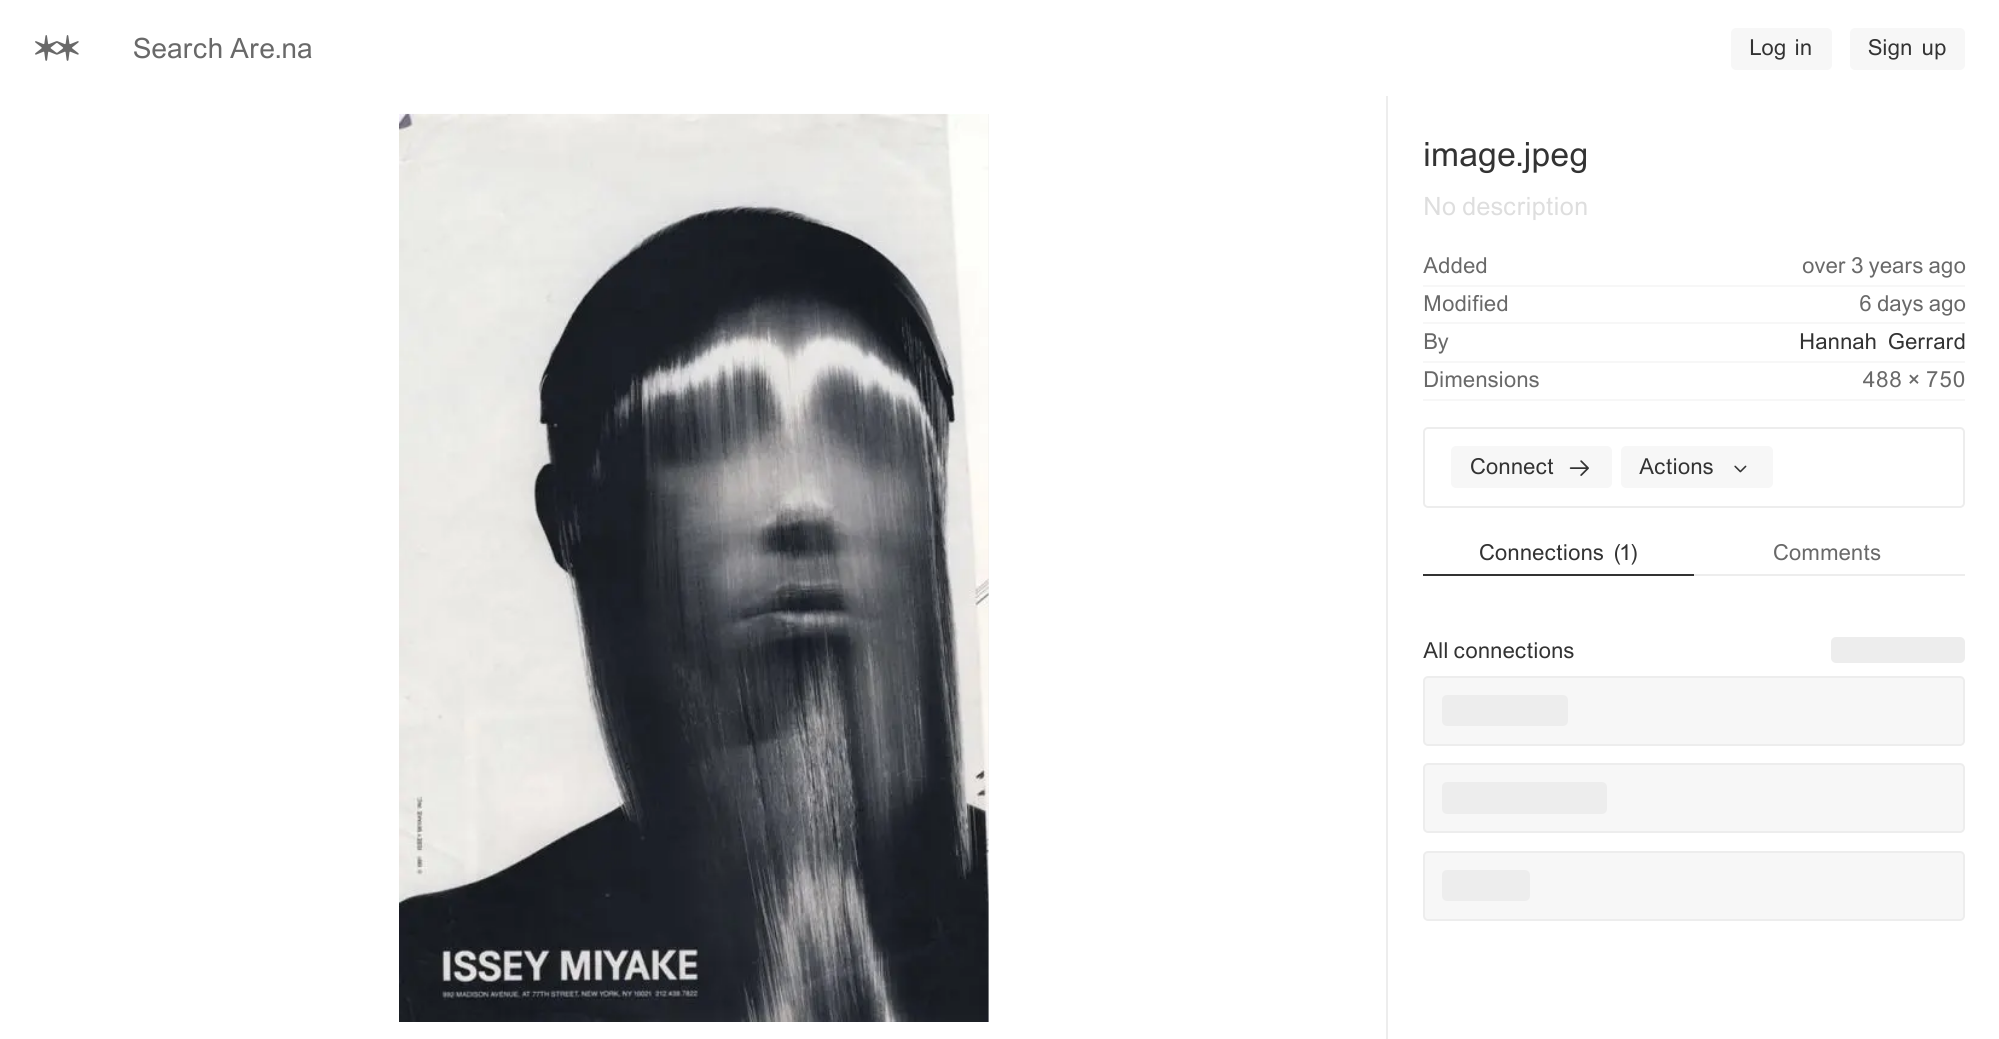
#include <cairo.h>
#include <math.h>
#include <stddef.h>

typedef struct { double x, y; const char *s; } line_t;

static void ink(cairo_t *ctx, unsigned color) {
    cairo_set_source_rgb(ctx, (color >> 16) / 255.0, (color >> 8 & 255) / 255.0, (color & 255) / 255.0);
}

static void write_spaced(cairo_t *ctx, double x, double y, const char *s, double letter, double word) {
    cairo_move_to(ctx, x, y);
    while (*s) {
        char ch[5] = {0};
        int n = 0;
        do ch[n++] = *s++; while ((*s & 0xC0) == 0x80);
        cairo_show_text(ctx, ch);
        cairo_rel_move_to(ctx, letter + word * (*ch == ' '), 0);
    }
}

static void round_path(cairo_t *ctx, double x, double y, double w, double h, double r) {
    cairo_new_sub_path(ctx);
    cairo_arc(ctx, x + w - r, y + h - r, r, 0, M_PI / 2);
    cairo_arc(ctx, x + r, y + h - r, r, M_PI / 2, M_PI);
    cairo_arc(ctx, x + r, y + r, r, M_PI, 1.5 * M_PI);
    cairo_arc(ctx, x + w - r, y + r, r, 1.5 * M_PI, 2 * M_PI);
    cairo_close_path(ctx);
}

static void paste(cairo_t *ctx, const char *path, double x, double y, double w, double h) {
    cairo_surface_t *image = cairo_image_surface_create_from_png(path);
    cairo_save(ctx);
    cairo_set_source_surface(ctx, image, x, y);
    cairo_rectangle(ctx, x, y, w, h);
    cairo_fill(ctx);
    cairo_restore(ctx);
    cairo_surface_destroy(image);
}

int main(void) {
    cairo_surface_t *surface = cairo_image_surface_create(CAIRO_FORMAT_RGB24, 1999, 1039);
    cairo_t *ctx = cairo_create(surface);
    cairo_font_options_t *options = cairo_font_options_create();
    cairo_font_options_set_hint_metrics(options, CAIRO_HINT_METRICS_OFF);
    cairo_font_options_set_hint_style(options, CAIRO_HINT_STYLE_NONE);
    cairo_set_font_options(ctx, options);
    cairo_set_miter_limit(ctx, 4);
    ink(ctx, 0xFFFFFF);
    cairo_paint(ctx);
    paste(ctx, "media/1.png", 35, 35, 44, 26);
    cairo_select_font_face(ctx, "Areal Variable", CAIRO_FONT_SLANT_NORMAL, CAIRO_FONT_WEIGHT_NORMAL);
    cairo_set_font_size(ctx, 28);
    ink(ctx, 0x696969);
    cairo_move_to(ctx, 133, 58);
    cairo_show_text(ctx, "Search Are.na");
    ink(ctx, 0xF7F7F7);
    round_path(ctx, 1731, 28, 101, 42, 5);
    cairo_fill(ctx);
    cairo_set_font_size(ctx, 22);
    ink(ctx, 0x333333);
    write_spaced(ctx, 1749, 55, "Log in", 0, 3);
    ink(ctx, 0xF7F7F7);
    round_path(ctx, 1850, 28, 115, 42, 5);
    cairo_fill(ctx);
    ink(ctx, 0x333333);
    write_spaced(ctx, 1868, 55, "Sign up", 0, 4);
    ink(ctx, 0xEDEDED);
    cairo_rectangle(ctx, 988, 114, 1, 908);
    cairo_fill(ctx);
    paste(ctx, "media/2.png", 399, 113, 590, 909);
    cairo_rectangle(ctx, 1386, 96, 2, 943);
    cairo_fill(ctx);
    cairo_set_font_size(ctx, 33.5);
    ink(ctx, 0x333333);
    cairo_move_to(ctx, 1423, 166);
    cairo_show_text(ctx, "image.jpeg");
    cairo_set_font_size(ctx, 25.25);
    ink(ctx, 0xDEDEDE);
    cairo_move_to(ctx, 1423, 215);
    cairo_show_text(ctx, "No description");
    ink(ctx, 0xF7F7F7);
    cairo_rectangle(ctx, 1423, 285, 542, 2);
    cairo_fill(ctx);
    cairo_set_font_size(ctx, 22);
    ink(ctx, 0x696969);
    cairo_move_to(ctx, 1423, 273);
    cairo_show_text(ctx, "Added");
    cairo_move_to(ctx, 1802, 273);
    cairo_show_text(ctx, "over 3 years ago");
    ink(ctx, 0xF7F7F7);
    cairo_rectangle(ctx, 1423, 322, 542, 2);
    cairo_fill(ctx);
    ink(ctx, 0x696969);
    cairo_move_to(ctx, 1423, 311);
    cairo_show_text(ctx, "Modified");
    cairo_move_to(ctx, 1859, 311);
    cairo_show_text(ctx, "6 days ago");
    ink(ctx, 0xF7F7F7);
    cairo_rectangle(ctx, 1423, 361, 542, 2);
    cairo_fill(ctx);
    ink(ctx, 0x696969);
    cairo_move_to(ctx, 1423, 349);
    cairo_show_text(ctx, "By");
    ink(ctx, 0x333333);
    write_spaced(ctx, 1799, 349, "Hannah Gerrard", 0, 6);
    ink(ctx, 0xF7F7F7);
    cairo_rectangle(ctx, 1423, 399, 542, 2);
    cairo_fill(ctx);
    ink(ctx, 0x696969);
    cairo_move_to(ctx, 1423, 387);
    cairo_show_text(ctx, "Dimensions");
    cairo_select_font_face(ctx, "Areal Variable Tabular", CAIRO_FONT_SLANT_NORMAL, CAIRO_FONT_WEIGHT_NORMAL);
    cairo_move_to(ctx, 1862, 387);
    cairo_show_text(ctx, "488 × 750");
    round_path(ctx, 1424, 428, 540, 79, 4);
    ink(ctx, 0xEDEDED);
    cairo_stroke(ctx);
    ink(ctx, 0xF7F7F7);
    round_path(ctx, 1451, 446, 161, 42, 5);
    cairo_fill(ctx);
    cairo_select_font_face(ctx, "Areal Variable", CAIRO_FONT_SLANT_NORMAL, CAIRO_FONT_WEIGHT_NORMAL);
    ink(ctx, 0x333333);
    cairo_move_to(ctx, 1470, 474);
    cairo_show_text(ctx, "Connect");
    paste(ctx, "media/3.png", 1569, 460, 20, 16);
    ink(ctx, 0xF7F7F7);
    round_path(ctx, 1621, 446, 152, 42, 5);
    cairo_fill(ctx);
    ink(ctx, 0x333333);
    cairo_move_to(ctx, 1639, 474);
    cairo_show_text(ctx, "Actions");
    paste(ctx, "media/4.png", 1734, 465, 13, 8);
    cairo_rectangle(ctx, 1423, 574, 271, 2);
    cairo_fill(ctx);
    {
        static const line_t items[] = {
            {1479, 560, "Connections"},
            {1614, 560, "("},
            {1621, 560, "1"},
            {1631, 560, ")"},
        };
        for (size_t i = 0; i < sizeof items / sizeof *items; i++) {
            cairo_move_to(ctx, items[i].x, items[i].y);
            cairo_show_text(ctx, items[i].s);
        }
    }
    ink(ctx, 0xEDEDED);
    cairo_rectangle(ctx, 1694, 574, 271, 2);
    cairo_fill(ctx);
    ink(ctx, 0x696969);
    cairo_move_to(ctx, 1773, 560);
    cairo_show_text(ctx, "Comments");
    ink(ctx, 0x333333);
    cairo_move_to(ctx, 1423, 658);
    cairo_show_text(ctx, "All connections");
    ink(ctx, 0xEDEDED);
    round_path(ctx, 1831, 637, 134, 26, 5);
    cairo_fill(ctx);
    ink(ctx, 0xF7F7F7);
    round_path(ctx, 1424, 677, 540, 68, 4);
    cairo_fill_preserve(ctx);
    ink(ctx, 0xEDEDED);
    cairo_stroke(ctx);
    round_path(ctx, 1442, 695, 126, 31, 5);
    cairo_fill(ctx);
    ink(ctx, 0xF7F7F7);
    round_path(ctx, 1424, 764, 540, 68, 4);
    cairo_fill_preserve(ctx);
    ink(ctx, 0xEDEDED);
    cairo_stroke(ctx);
    round_path(ctx, 1442, 782, 165, 32, 5);
    cairo_fill(ctx);
    ink(ctx, 0xF7F7F7);
    round_path(ctx, 1424, 852, 540, 68, 4);
    cairo_fill_preserve(ctx);
    ink(ctx, 0xEDEDED);
    cairo_stroke(ctx);
    round_path(ctx, 1442, 870, 88, 31, 5);
    cairo_fill(ctx);
    cairo_surface_write_to_png(surface, "image.png");
    cairo_font_options_destroy(options);
    cairo_destroy(ctx);
    cairo_surface_destroy(surface);
    return 0;
}
